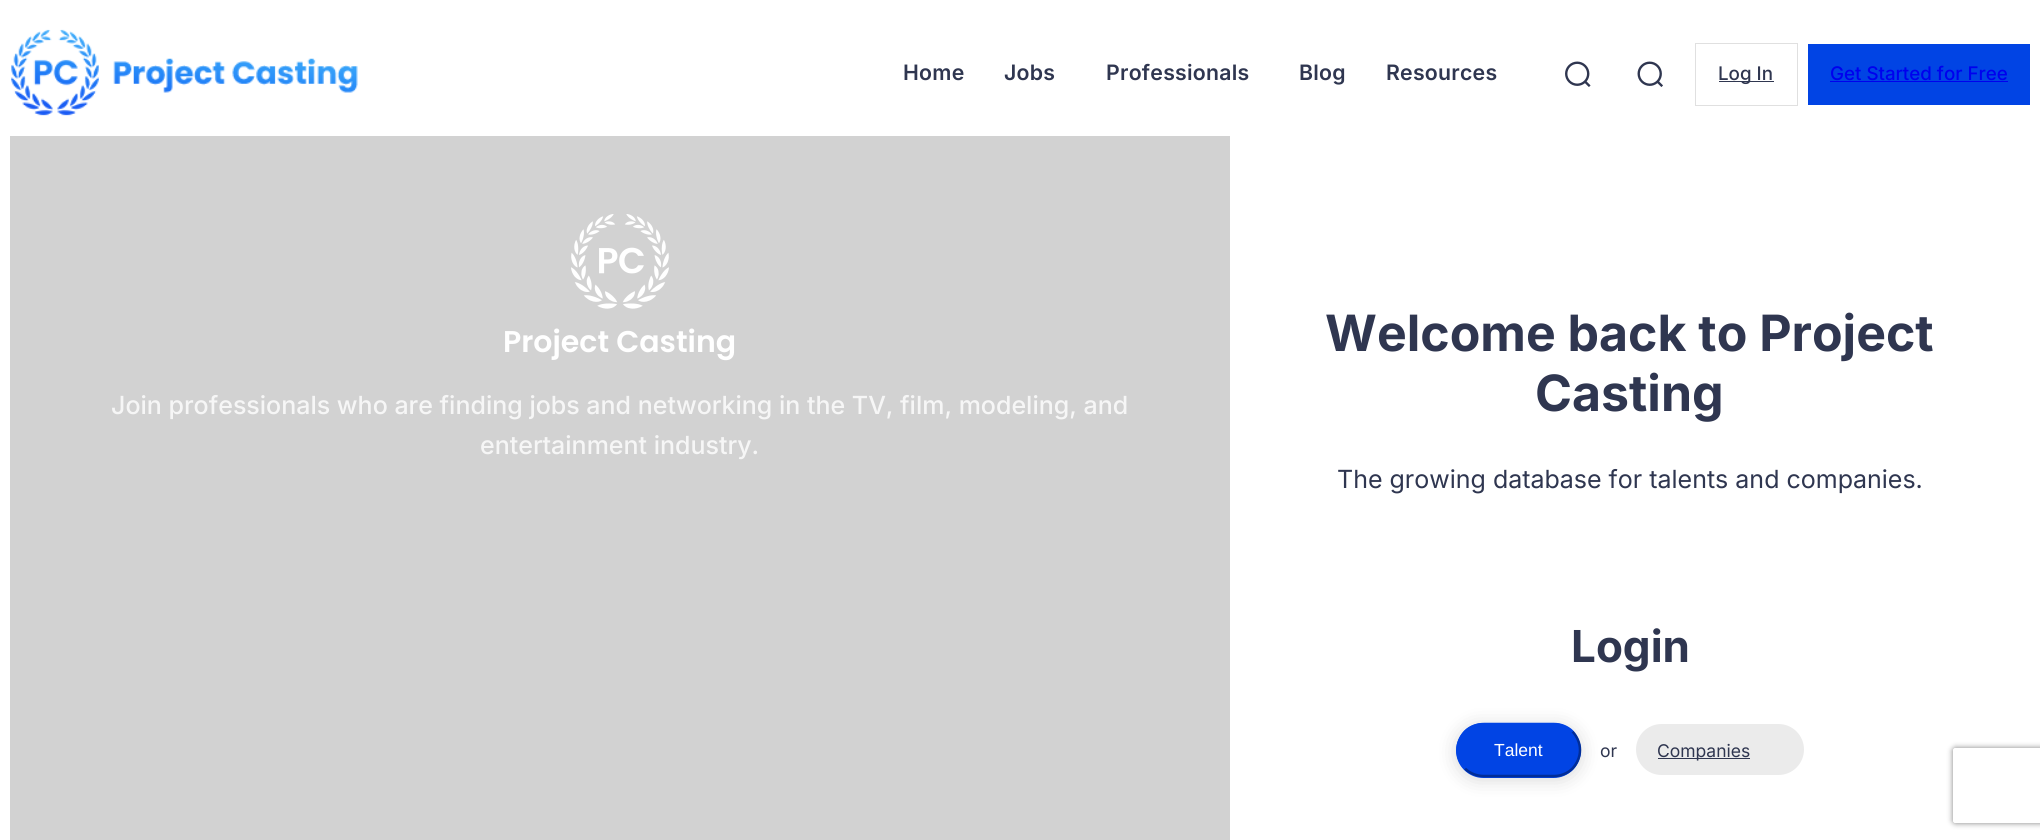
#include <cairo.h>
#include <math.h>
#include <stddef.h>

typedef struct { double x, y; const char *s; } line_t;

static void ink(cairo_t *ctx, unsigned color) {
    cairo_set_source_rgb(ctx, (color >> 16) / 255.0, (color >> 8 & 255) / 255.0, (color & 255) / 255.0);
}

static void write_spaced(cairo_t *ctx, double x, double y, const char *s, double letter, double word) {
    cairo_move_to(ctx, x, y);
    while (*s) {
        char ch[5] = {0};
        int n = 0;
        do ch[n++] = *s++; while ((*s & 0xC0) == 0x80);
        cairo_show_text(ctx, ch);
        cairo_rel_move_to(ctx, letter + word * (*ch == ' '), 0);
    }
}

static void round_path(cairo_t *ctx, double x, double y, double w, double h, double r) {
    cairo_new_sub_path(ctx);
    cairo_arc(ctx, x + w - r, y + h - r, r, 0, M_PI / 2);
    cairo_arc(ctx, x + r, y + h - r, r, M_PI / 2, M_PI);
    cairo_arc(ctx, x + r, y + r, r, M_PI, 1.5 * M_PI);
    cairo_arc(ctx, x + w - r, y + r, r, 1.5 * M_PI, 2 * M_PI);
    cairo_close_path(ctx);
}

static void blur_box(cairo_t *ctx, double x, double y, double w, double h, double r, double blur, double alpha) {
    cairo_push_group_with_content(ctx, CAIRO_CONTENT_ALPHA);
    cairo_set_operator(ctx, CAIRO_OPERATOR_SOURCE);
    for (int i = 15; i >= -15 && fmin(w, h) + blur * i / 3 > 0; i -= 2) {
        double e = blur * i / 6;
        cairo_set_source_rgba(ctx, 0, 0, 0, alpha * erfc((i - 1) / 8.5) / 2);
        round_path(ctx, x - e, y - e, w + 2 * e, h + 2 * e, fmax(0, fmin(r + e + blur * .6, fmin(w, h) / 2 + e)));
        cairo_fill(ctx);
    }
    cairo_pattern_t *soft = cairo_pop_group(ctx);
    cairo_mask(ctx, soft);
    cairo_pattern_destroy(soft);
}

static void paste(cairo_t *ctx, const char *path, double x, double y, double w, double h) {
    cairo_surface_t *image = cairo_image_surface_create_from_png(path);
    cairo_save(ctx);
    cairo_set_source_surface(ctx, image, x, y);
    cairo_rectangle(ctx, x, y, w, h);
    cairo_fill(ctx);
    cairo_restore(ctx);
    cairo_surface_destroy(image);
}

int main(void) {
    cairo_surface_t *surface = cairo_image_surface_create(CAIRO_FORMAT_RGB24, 2040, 840);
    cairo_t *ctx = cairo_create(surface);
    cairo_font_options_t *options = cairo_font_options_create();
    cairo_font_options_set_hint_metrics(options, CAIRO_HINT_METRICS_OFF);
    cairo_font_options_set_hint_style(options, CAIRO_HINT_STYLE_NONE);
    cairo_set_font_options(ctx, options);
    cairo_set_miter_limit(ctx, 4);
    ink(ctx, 0xFFFFFF);
    cairo_paint(ctx);
    paste(ctx, "media/1.png", 11, 29, 347, 87);
    cairo_select_font_face(ctx, "Inter SemiBold", CAIRO_FONT_SLANT_NORMAL, CAIRO_FONT_WEIGHT_NORMAL);
    cairo_set_font_size(ctx, 21.25);
    ink(ctx, 0x2F3650);
    {
        static const line_t items[] = {
            {903, 80, "Home"},
            {1004, 80, "Jobs"},
            {1106, 80, "Professionals"},
            {1299, 80, "Blog"},
            {1386, 80, "Resources"},
        };
        for (size_t i = 0; i < sizeof items / sizeof *items; i++) {
            write_spaced(ctx, items[i].x, items[i].y, items[i].s, 0.25, 0);
        }
    }
    paste(ctx, "media/2.png", 1565, 61, 26, 26);
    paste(ctx, "media/3.png", 1637, 61, 26, 26);
    cairo_rectangle(ctx, 1695.5, 43.5, 102, 62);
    ink(ctx, 0xE0E0E0);
    cairo_set_line_width(ctx, 1);
    cairo_stroke(ctx);
    ink(ctx, 0x2F3650);
    cairo_rectangle(ctx, 1719, 81, 55, 1);
    cairo_fill(ctx);
    cairo_select_font_face(ctx, "Inter Medium", CAIRO_FONT_SLANT_NORMAL, CAIRO_FONT_WEIGHT_NORMAL);
    cairo_set_font_size(ctx, 18.75);
    cairo_move_to(ctx, 1718, 80);
    cairo_show_text(ctx, "Log In");
    ink(ctx, 0x0144E4);
    cairo_rectangle(ctx, 1808, 44, 222, 61);
    cairo_fill(ctx);
    ink(ctx, 0x0000EE);
    cairo_move_to(ctx, 1830, 80);
    cairo_show_text(ctx, "Get Started for Free");
    cairo_rectangle(ctx, 1830, 81, 178, 1);
    cairo_fill(ctx);
    ink(ctx, 0xD2D2D2);
    cairo_rectangle(ctx, 10, 136, 1220, 704);
    cairo_fill(ctx);
    paste(ctx, "media/4.png", 571, 214, 98, 95);
    cairo_select_font_face(ctx, "Poppins SemiBold", CAIRO_FONT_SLANT_NORMAL, CAIRO_FONT_WEIGHT_NORMAL);
    cairo_set_font_size(ctx, 30);
    ink(ctx, 0xFFFFFF);
    cairo_move_to(ctx, 503, 352);
    cairo_show_text(ctx, "Project Casting");
    cairo_select_font_face(ctx, "Inter Medium", CAIRO_FONT_SLANT_NORMAL, CAIRO_FONT_WEIGHT_NORMAL);
    cairo_set_font_size(ctx, 25);
    ink(ctx, 0xF6F6F6);
    cairo_move_to(ctx, 111, 414);
    cairo_show_text(ctx, "Join professionals who are finding jobs and networking in the TV, film, modeling, and");
    cairo_move_to(ctx, 480, 454);
    cairo_show_text(ctx, "entertainment industry.");
    cairo_select_font_face(ctx, "Inter", CAIRO_FONT_SLANT_NORMAL, CAIRO_FONT_WEIGHT_BOLD);
    cairo_set_font_size(ctx, 50);
    ink(ctx, 0x2F3650);
    cairo_move_to(ctx, 1325, 351);
    cairo_show_text(ctx, "Welcome back to Project");
    cairo_move_to(ctx, 1535, 411);
    cairo_show_text(ctx, "Casting");
    cairo_select_font_face(ctx, "Inter", CAIRO_FONT_SLANT_NORMAL, CAIRO_FONT_WEIGHT_NORMAL);
    cairo_set_font_size(ctx, 25);
    cairo_move_to(ctx, 1337, 488);
    cairo_show_text(ctx, "The growing database for talents and companies.");
    cairo_select_font_face(ctx, "Inter", CAIRO_FONT_SLANT_NORMAL, CAIRO_FONT_WEIGHT_BOLD);
    cairo_set_font_size(ctx, 44);
    cairo_move_to(ctx, 1571, 662);
    cairo_show_text(ctx, "Login");
    ink(ctx, 0x000000);
    blur_box(ctx, 1456, 725, 125, 55, 27.5, 9.5, 0.15);
    ink(ctx, 0x0144E4);
    round_path(ctx, 1456, 723, 125, 55, 27.5);
    cairo_fill(ctx);
    cairo_new_path(ctx);
    cairo_move_to(ctx, 1572.5, 731.5);
    cairo_curve_to(ctx, 1577, 736.5, 1580, 743, 1580, 750);
    cairo_curve_to(ctx, 1580, 757, 1577, 763.5, 1572.5, 768.5);
    cairo_curve_to(ctx, 1567.5, 773.5, 1560.5, 776, 1554, 776);
    cairo_line_to(ctx, 1484, 776);
    cairo_curve_to(ctx, 1477, 776, 1470, 773.5, 1465, 768.5);
    ink(ctx, 0x012D98);
    cairo_set_line_width(ctx, 2.5);
    cairo_stroke(ctx);
    cairo_new_path(ctx);
    cairo_move_to(ctx, 1465, 768.5);
    cairo_curve_to(ctx, 1460.5, 763.5, 1457.5, 757, 1457.5, 750);
    cairo_curve_to(ctx, 1457.5, 743, 1460.5, 736.5, 1465, 731.5);
    cairo_curve_to(ctx, 1470, 726.5, 1477, 724, 1484, 724);
    cairo_line_to(ctx, 1554, 724);
    cairo_curve_to(ctx, 1560.5, 724, 1567.5, 726.5, 1572.5, 731.5);
    ink(ctx, 0x0144E4);
    cairo_stroke(ctx);
    cairo_select_font_face(ctx, "Liberation Sans", CAIRO_FONT_SLANT_NORMAL, CAIRO_FONT_WEIGHT_NORMAL);
    cairo_set_font_size(ctx, 17.5);
    ink(ctx, 0xFFFFFF);
    cairo_move_to(ctx, 1494, 756);
    cairo_show_text(ctx, "Talent");
    cairo_select_font_face(ctx, "Inter", CAIRO_FONT_SLANT_NORMAL, CAIRO_FONT_WEIGHT_NORMAL);
    ink(ctx, 0x2F3650);
    cairo_move_to(ctx, 1600, 757);
    cairo_show_text(ctx, "or");
    ink(ctx, 0xEBEBEB);
    round_path(ctx, 1636, 724, 168, 51, 25.5);
    cairo_fill(ctx);
    ink(ctx, 0x2F3650);
    cairo_rectangle(ctx, 1658, 758, 92, 1);
    cairo_fill(ctx);
    cairo_move_to(ctx, 1657, 757);
    cairo_show_text(ctx, "Companies");
    cairo_save(ctx);
    cairo_set_fill_rule(ctx, CAIRO_FILL_RULE_EVEN_ODD);
    cairo_new_path(ctx);
    cairo_move_to(ctx, 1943, 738);
    cairo_line_to(ctx, 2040, 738);
    cairo_line_to(ctx, 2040, 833);
    cairo_line_to(ctx, 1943, 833);
    cairo_close_path(ctx);
    cairo_move_to(ctx, 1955.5, 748);
    cairo_line_to(ctx, 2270.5, 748);
    cairo_curve_to(ctx, 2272, 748, 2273, 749, 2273, 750.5);
    cairo_line_to(ctx, 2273, 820.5);
    cairo_curve_to(ctx, 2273, 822, 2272, 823, 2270.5, 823);
    cairo_line_to(ctx, 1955.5, 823);
    cairo_curve_to(ctx, 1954, 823, 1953, 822, 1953, 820.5);
    cairo_line_to(ctx, 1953, 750.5);
    cairo_curve_to(ctx, 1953, 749, 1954, 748, 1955.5, 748);
    cairo_close_path(ctx);
    cairo_clip(ctx);
    ink(ctx, 0x808080);
    blur_box(ctx, 1953, 748, 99, 75, 2.5, 3, 1);
    cairo_restore(ctx);
    cairo_surface_write_to_png(surface, "image.png");
    cairo_font_options_destroy(options);
    cairo_destroy(ctx);
    cairo_surface_destroy(surface);
    return 0;
}
